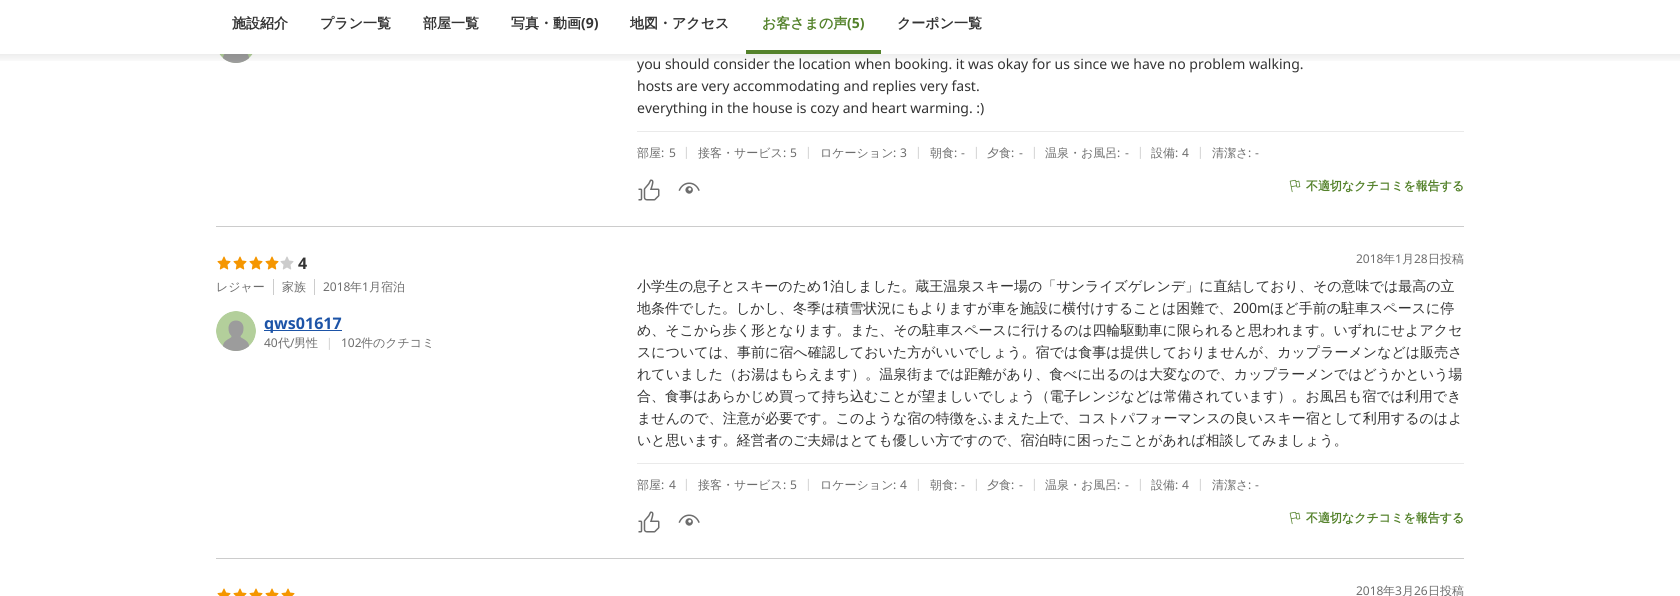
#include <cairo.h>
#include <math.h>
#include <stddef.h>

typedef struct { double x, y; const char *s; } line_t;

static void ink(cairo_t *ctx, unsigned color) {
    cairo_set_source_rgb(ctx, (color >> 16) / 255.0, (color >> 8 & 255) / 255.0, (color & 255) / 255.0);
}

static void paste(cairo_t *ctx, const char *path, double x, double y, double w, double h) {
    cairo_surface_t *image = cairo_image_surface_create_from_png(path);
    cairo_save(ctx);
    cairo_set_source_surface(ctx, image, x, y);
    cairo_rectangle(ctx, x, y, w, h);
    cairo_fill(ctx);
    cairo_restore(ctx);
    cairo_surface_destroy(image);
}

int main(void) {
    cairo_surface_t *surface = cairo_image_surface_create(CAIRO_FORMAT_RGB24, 1680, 596);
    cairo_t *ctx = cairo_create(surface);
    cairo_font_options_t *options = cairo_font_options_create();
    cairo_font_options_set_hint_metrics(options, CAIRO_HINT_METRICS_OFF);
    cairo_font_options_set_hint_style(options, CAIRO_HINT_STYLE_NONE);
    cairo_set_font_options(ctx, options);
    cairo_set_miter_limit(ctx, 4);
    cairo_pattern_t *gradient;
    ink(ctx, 0xFFFFFF);
    cairo_paint(ctx);
    cairo_select_font_face(ctx, "WenQuanYi Zen Hei", CAIRO_FONT_SLANT_NORMAL, CAIRO_FONT_WEIGHT_BOLD);
    cairo_set_font_size(ctx, 14);
    ink(ctx, 0x333333);
    {
        static const line_t items[] = {
            {232, 28, "施設紹介"},
            {320, 28, "プラン一覧"},
            {423, 28, "部屋一覧"},
            {511, 28, "写真・動画"},
        };
        for (size_t i = 0; i < sizeof items / sizeof *items; i++) {
            cairo_move_to(ctx, items[i].x, items[i].y);
            cairo_show_text(ctx, items[i].s);
        }
    }
    cairo_select_font_face(ctx, "Noto Sans", CAIRO_FONT_SLANT_NORMAL, CAIRO_FONT_WEIGHT_BOLD);
    cairo_move_to(ctx, 581, 28);
    cairo_show_text(ctx, "(9)");
    cairo_select_font_face(ctx, "WenQuanYi Zen Hei", CAIRO_FONT_SLANT_NORMAL, CAIRO_FONT_WEIGHT_BOLD);
    cairo_move_to(ctx, 630, 28);
    cairo_show_text(ctx, "地図・アクセス");
    ink(ctx, 0x54822B);
    cairo_rectangle(ctx, 746, 50, 135, 4);
    cairo_fill(ctx);
    cairo_move_to(ctx, 762, 28);
    cairo_show_text(ctx, "お客さまの声");
    cairo_select_font_face(ctx, "Noto Sans", CAIRO_FONT_SLANT_NORMAL, CAIRO_FONT_WEIGHT_BOLD);
    cairo_move_to(ctx, 847, 28);
    cairo_show_text(ctx, "(5)");
    cairo_select_font_face(ctx, "WenQuanYi Zen Hei", CAIRO_FONT_SLANT_NORMAL, CAIRO_FONT_WEIGHT_BOLD);
    ink(ctx, 0x333333);
    cairo_move_to(ctx, 897, 28);
    cairo_show_text(ctx, "クーポン一覧");
    paste(ctx, "media/1.png", 219, 54, 34, 9);
    gradient = cairo_pattern_create_linear(840, 64, 840, 54);
    cairo_pattern_add_color_stop_rgba(gradient, 0, 0, 0, 0, 0);
    cairo_pattern_add_color_stop_rgba(gradient, 1, 0, 0, 0, 0.07);
    cairo_set_source(ctx, gradient);
    cairo_pattern_destroy(gradient);
    cairo_rectangle(ctx, 0, 54, 1680, 7);
    cairo_fill(ctx);
    cairo_select_font_face(ctx, "Noto Sans", CAIRO_FONT_SLANT_NORMAL, CAIRO_FONT_WEIGHT_NORMAL);
    ink(ctx, 0x333333);
    {
        static const line_t items[] = {
            {637, 69, "you should consider the location when booking. it was okay for us since we have no problem walking."},
            {637, 91, "hosts are very accommodating and replies very fast."},
            {637, 113, "everything in the house is cozy and heart warming. :)"},
        };
        for (size_t i = 0; i < sizeof items / sizeof *items; i++) {
            cairo_move_to(ctx, items[i].x, items[i].y);
            cairo_show_text(ctx, items[i].s);
        }
    }
    ink(ctx, 0xEAEAEA);
    cairo_rectangle(ctx, 637, 131, 827, 1);
    cairo_fill(ctx);
    cairo_select_font_face(ctx, "WenQuanYi Zen Hei Medium", CAIRO_FONT_SLANT_NORMAL, CAIRO_FONT_WEIGHT_NORMAL);
    cairo_set_font_size(ctx, 12);
    ink(ctx, 0x6D6D6D);
    cairo_move_to(ctx, 637, 157);
    cairo_show_text(ctx, "部屋");
    cairo_select_font_face(ctx, "Noto Sans", CAIRO_FONT_SLANT_NORMAL, CAIRO_FONT_WEIGHT_NORMAL);
    cairo_move_to(ctx, 661, 157);
    cairo_show_text(ctx, ":");
    cairo_move_to(ctx, 669, 157);
    cairo_show_text(ctx, "5");
    ink(ctx, 0xCCCCCC);
    cairo_move_to(ctx, 683, 156);
    cairo_show_text(ctx, "|");
    cairo_select_font_face(ctx, "WenQuanYi Zen Hei Medium", CAIRO_FONT_SLANT_NORMAL, CAIRO_FONT_WEIGHT_NORMAL);
    ink(ctx, 0x6D6D6D);
    cairo_move_to(ctx, 698, 157);
    cairo_show_text(ctx, "接客・サービス");
    cairo_select_font_face(ctx, "Noto Sans", CAIRO_FONT_SLANT_NORMAL, CAIRO_FONT_WEIGHT_NORMAL);
    cairo_move_to(ctx, 783, 157);
    cairo_show_text(ctx, ":");
    cairo_move_to(ctx, 790, 157);
    cairo_show_text(ctx, "5");
    ink(ctx, 0xCCCCCC);
    cairo_move_to(ctx, 805, 156);
    cairo_show_text(ctx, "|");
    cairo_select_font_face(ctx, "WenQuanYi Zen Hei Medium", CAIRO_FONT_SLANT_NORMAL, CAIRO_FONT_WEIGHT_NORMAL);
    ink(ctx, 0x6D6D6D);
    cairo_move_to(ctx, 820, 157);
    cairo_show_text(ctx, "ロケーション");
    cairo_select_font_face(ctx, "Noto Sans", CAIRO_FONT_SLANT_NORMAL, CAIRO_FONT_WEIGHT_NORMAL);
    cairo_move_to(ctx, 893, 157);
    cairo_show_text(ctx, ":");
    cairo_move_to(ctx, 900, 157);
    cairo_show_text(ctx, "3");
    ink(ctx, 0xCCCCCC);
    cairo_move_to(ctx, 915, 156);
    cairo_show_text(ctx, "|");
    cairo_select_font_face(ctx, "WenQuanYi Zen Hei Medium", CAIRO_FONT_SLANT_NORMAL, CAIRO_FONT_WEIGHT_NORMAL);
    ink(ctx, 0x6D6D6D);
    cairo_move_to(ctx, 930, 157);
    cairo_show_text(ctx, "朝食");
    cairo_select_font_face(ctx, "Noto Sans", CAIRO_FONT_SLANT_NORMAL, CAIRO_FONT_WEIGHT_NORMAL);
    cairo_move_to(ctx, 954, 157);
    cairo_show_text(ctx, ":");
    cairo_move_to(ctx, 961, 157);
    cairo_show_text(ctx, "-");
    ink(ctx, 0xCCCCCC);
    cairo_move_to(ctx, 973, 156);
    cairo_show_text(ctx, "|");
    cairo_select_font_face(ctx, "WenQuanYi Zen Hei Medium", CAIRO_FONT_SLANT_NORMAL, CAIRO_FONT_WEIGHT_NORMAL);
    ink(ctx, 0x6D6D6D);
    cairo_move_to(ctx, 987, 157);
    cairo_show_text(ctx, "夕食");
    cairo_select_font_face(ctx, "Noto Sans", CAIRO_FONT_SLANT_NORMAL, CAIRO_FONT_WEIGHT_NORMAL);
    cairo_move_to(ctx, 1011, 157);
    cairo_show_text(ctx, ":");
    cairo_move_to(ctx, 1019, 157);
    cairo_show_text(ctx, "-");
    ink(ctx, 0xCCCCCC);
    cairo_move_to(ctx, 1031, 156);
    cairo_show_text(ctx, "|");
    cairo_select_font_face(ctx, "WenQuanYi Zen Hei Medium", CAIRO_FONT_SLANT_NORMAL, CAIRO_FONT_WEIGHT_NORMAL);
    ink(ctx, 0x6D6D6D);
    cairo_move_to(ctx, 1045, 157);
    cairo_show_text(ctx, "温泉・お風呂");
    cairo_select_font_face(ctx, "Noto Sans", CAIRO_FONT_SLANT_NORMAL, CAIRO_FONT_WEIGHT_NORMAL);
    cairo_move_to(ctx, 1117, 157);
    cairo_show_text(ctx, ":");
    cairo_move_to(ctx, 1125, 157);
    cairo_show_text(ctx, "-");
    ink(ctx, 0xCCCCCC);
    cairo_move_to(ctx, 1137, 156);
    cairo_show_text(ctx, "|");
    cairo_select_font_face(ctx, "WenQuanYi Zen Hei Medium", CAIRO_FONT_SLANT_NORMAL, CAIRO_FONT_WEIGHT_NORMAL);
    ink(ctx, 0x6D6D6D);
    cairo_move_to(ctx, 1151, 157);
    cairo_show_text(ctx, "設備");
    cairo_select_font_face(ctx, "Noto Sans", CAIRO_FONT_SLANT_NORMAL, CAIRO_FONT_WEIGHT_NORMAL);
    cairo_move_to(ctx, 1175, 157);
    cairo_show_text(ctx, ":");
    cairo_move_to(ctx, 1182, 157);
    cairo_show_text(ctx, "4");
    ink(ctx, 0xCCCCCC);
    cairo_move_to(ctx, 1197, 156);
    cairo_show_text(ctx, "|");
    cairo_select_font_face(ctx, "WenQuanYi Zen Hei Medium", CAIRO_FONT_SLANT_NORMAL, CAIRO_FONT_WEIGHT_NORMAL);
    ink(ctx, 0x6D6D6D);
    cairo_move_to(ctx, 1212, 157);
    cairo_show_text(ctx, "清潔さ");
    cairo_select_font_face(ctx, "Noto Sans", CAIRO_FONT_SLANT_NORMAL, CAIRO_FONT_WEIGHT_NORMAL);
    cairo_move_to(ctx, 1248, 157);
    cairo_show_text(ctx, ":");
    cairo_move_to(ctx, 1255, 157);
    cairo_show_text(ctx, "-");
    paste(ctx, "media/2.png", 638, 179, 22, 22);
    paste(ctx, "media/3.png", 678, 182, 22, 12);
    paste(ctx, "media/4.png", 1289, 179, 12, 14);
    cairo_select_font_face(ctx, "WenQuanYi Zen Hei", CAIRO_FONT_SLANT_NORMAL, CAIRO_FONT_WEIGHT_BOLD);
    ink(ctx, 0x54822B);
    cairo_move_to(ctx, 1306, 190);
    cairo_show_text(ctx, "不適切なクチコミを報告する");
    ink(ctx, 0xCCCCCC);
    cairo_rectangle(ctx, 216, 226, 1248, 1);
    cairo_fill(ctx);
    paste(ctx, "media/5.png", 217, 256, 14, 14);
    paste(ctx, "media/5.png", 233, 256, 14, 14);
    paste(ctx, "media/5.png", 249, 256, 14, 14);
    paste(ctx, "media/5.png", 265, 256, 14, 14);
    paste(ctx, "media/6.png", 280, 256, 14, 14);
    cairo_select_font_face(ctx, "Noto Sans", CAIRO_FONT_SLANT_NORMAL, CAIRO_FONT_WEIGHT_BOLD);
    cairo_set_font_size(ctx, 16);
    ink(ctx, 0x333333);
    cairo_move_to(ctx, 298, 269);
    cairo_show_text(ctx, "4");
    cairo_select_font_face(ctx, "WenQuanYi Zen Hei Medium", CAIRO_FONT_SLANT_NORMAL, CAIRO_FONT_WEIGHT_NORMAL);
    cairo_set_font_size(ctx, 12);
    ink(ctx, 0x6D6D6D);
    cairo_move_to(ctx, 216, 291);
    cairo_show_text(ctx, "レジャー");
    ink(ctx, 0xCCCCCC);
    cairo_rectangle(ctx, 273, 279, 1, 16);
    cairo_fill(ctx);
    ink(ctx, 0x6D6D6D);
    cairo_move_to(ctx, 282, 291);
    cairo_show_text(ctx, "家族");
    ink(ctx, 0xCCCCCC);
    cairo_rectangle(ctx, 314, 279, 1, 16);
    cairo_fill(ctx);
    cairo_select_font_face(ctx, "Noto Sans", CAIRO_FONT_SLANT_NORMAL, CAIRO_FONT_WEIGHT_NORMAL);
    ink(ctx, 0x6D6D6D);
    cairo_move_to(ctx, 323, 291);
    cairo_show_text(ctx, "2018");
    cairo_select_font_face(ctx, "WenQuanYi Zen Hei Medium", CAIRO_FONT_SLANT_NORMAL, CAIRO_FONT_WEIGHT_NORMAL);
    cairo_move_to(ctx, 350, 291);
    cairo_show_text(ctx, "年");
    cairo_select_font_face(ctx, "Noto Sans", CAIRO_FONT_SLANT_NORMAL, CAIRO_FONT_WEIGHT_NORMAL);
    cairo_move_to(ctx, 362, 291);
    cairo_show_text(ctx, "1");
    cairo_select_font_face(ctx, "WenQuanYi Zen Hei Medium", CAIRO_FONT_SLANT_NORMAL, CAIRO_FONT_WEIGHT_NORMAL);
    cairo_move_to(ctx, 369, 291);
    cairo_show_text(ctx, "月宿泊");
    paste(ctx, "media/7.png", 216, 311, 40, 40);
    ink(ctx, 0x1D54A7);
    cairo_rectangle(ctx, 264, 330, 78, 1);
    cairo_fill(ctx);
    cairo_select_font_face(ctx, "Noto Sans", CAIRO_FONT_SLANT_NORMAL, CAIRO_FONT_WEIGHT_BOLD);
    cairo_set_font_size(ctx, 16);
    cairo_move_to(ctx, 264, 329);
    cairo_show_text(ctx, "qws01617");
    cairo_select_font_face(ctx, "Noto Sans", CAIRO_FONT_SLANT_NORMAL, CAIRO_FONT_WEIGHT_NORMAL);
    cairo_set_font_size(ctx, 12);
    ink(ctx, 0x6D6D6D);
    cairo_move_to(ctx, 264, 347);
    cairo_show_text(ctx, "40");
    cairo_select_font_face(ctx, "WenQuanYi Zen Hei Medium", CAIRO_FONT_SLANT_NORMAL, CAIRO_FONT_WEIGHT_NORMAL);
    cairo_move_to(ctx, 278, 347);
    cairo_show_text(ctx, "代");
    cairo_select_font_face(ctx, "Noto Sans", CAIRO_FONT_SLANT_NORMAL, CAIRO_FONT_WEIGHT_NORMAL);
    cairo_move_to(ctx, 290, 347);
    cairo_show_text(ctx, "/");
    cairo_select_font_face(ctx, "WenQuanYi Zen Hei Medium", CAIRO_FONT_SLANT_NORMAL, CAIRO_FONT_WEIGHT_NORMAL);
    cairo_move_to(ctx, 294, 347);
    cairo_show_text(ctx, "男性");
    cairo_select_font_face(ctx, "Noto Sans", CAIRO_FONT_SLANT_NORMAL, CAIRO_FONT_WEIGHT_NORMAL);
    ink(ctx, 0xCCCCCC);
    cairo_move_to(ctx, 326, 347);
    cairo_show_text(ctx, "|");
    ink(ctx, 0x6D6D6D);
    cairo_move_to(ctx, 341, 347);
    cairo_show_text(ctx, "102");
    cairo_select_font_face(ctx, "WenQuanYi Zen Hei Medium", CAIRO_FONT_SLANT_NORMAL, CAIRO_FONT_WEIGHT_NORMAL);
    cairo_move_to(ctx, 361, 347);
    cairo_show_text(ctx, "件のクチコミ");
    cairo_select_font_face(ctx, "Noto Sans", CAIRO_FONT_SLANT_NORMAL, CAIRO_FONT_WEIGHT_NORMAL);
    cairo_move_to(ctx, 1356, 263);
    cairo_show_text(ctx, "2018");
    cairo_select_font_face(ctx, "WenQuanYi Zen Hei Medium", CAIRO_FONT_SLANT_NORMAL, CAIRO_FONT_WEIGHT_NORMAL);
    cairo_move_to(ctx, 1383, 263);
    cairo_show_text(ctx, "年");
    cairo_select_font_face(ctx, "Noto Sans", CAIRO_FONT_SLANT_NORMAL, CAIRO_FONT_WEIGHT_NORMAL);
    cairo_move_to(ctx, 1395, 263);
    cairo_show_text(ctx, "1");
    cairo_select_font_face(ctx, "WenQuanYi Zen Hei Medium", CAIRO_FONT_SLANT_NORMAL, CAIRO_FONT_WEIGHT_NORMAL);
    cairo_move_to(ctx, 1402, 263);
    cairo_show_text(ctx, "月");
    cairo_select_font_face(ctx, "Noto Sans", CAIRO_FONT_SLANT_NORMAL, CAIRO_FONT_WEIGHT_NORMAL);
    cairo_move_to(ctx, 1414, 263);
    cairo_show_text(ctx, "28");
    cairo_select_font_face(ctx, "WenQuanYi Zen Hei Medium", CAIRO_FONT_SLANT_NORMAL, CAIRO_FONT_WEIGHT_NORMAL);
    cairo_move_to(ctx, 1428, 263);
    cairo_show_text(ctx, "日投稿");
    cairo_set_font_size(ctx, 14);
    ink(ctx, 0x333333);
    cairo_move_to(ctx, 637, 291);
    cairo_show_text(ctx, "小学生の息子とスキーのため");
    cairo_select_font_face(ctx, "Noto Sans", CAIRO_FONT_SLANT_NORMAL, CAIRO_FONT_WEIGHT_NORMAL);
    cairo_move_to(ctx, 822, 291);
    cairo_show_text(ctx, "1");
    cairo_select_font_face(ctx, "WenQuanYi Zen Hei Medium", CAIRO_FONT_SLANT_NORMAL, CAIRO_FONT_WEIGHT_NORMAL);
    cairo_move_to(ctx, 830, 291);
    cairo_show_text(ctx, "泊しました。蔵王温泉スキー場の「サンライズゲレンデ」に直結しており、その意味では最高の立");
    cairo_move_to(ctx, 637, 313);
    cairo_show_text(ctx, "地条件でした。しかし、冬季は積雪状況にもよりますが車を施設に横付けすることは困難で、");
    cairo_select_font_face(ctx, "Noto Sans", CAIRO_FONT_SLANT_NORMAL, CAIRO_FONT_WEIGHT_NORMAL);
    cairo_move_to(ctx, 1233, 313);
    cairo_show_text(ctx, "200m");
    cairo_select_font_face(ctx, "WenQuanYi Zen Hei Medium", CAIRO_FONT_SLANT_NORMAL, CAIRO_FONT_WEIGHT_NORMAL);
    {
        static const line_t items[] = {
            {1270, 313, "ほど手前の駐車スペースに停"},
            {637, 335, "め、そこから歩く形となります。また、その駐車スペースに行けるのは四輪駆動車に限られると思われます。いずれにせよアクセ"},
            {637, 357, "スについては、事前に宿へ確認しておいた方がいいでしょう。宿では食事は提供しておりませんが、カップラーメンなどは販売さ"},
            {637, 379, "れていました（お湯はもらえます）。温泉街までは距離があり、食べに出るのは大変なので、カップラーメンではどうかという場"},
            {637, 401, "合、食事はあらかじめ買って持ち込むことが望ましいでしょう（電子レンジなどは常備されています）。お風呂も宿では利用でき"},
            {637, 423, "ませんので、注意が必要です。このような宿の特徴をふまえた上で、コストパフォーマンスの良いスキー宿として利用するのはよ"},
            {637, 445, "いと思います。経営者のご夫婦はとても優しい方ですので、宿泊時に困ったことがあれば相談してみましょう。"},
        };
        for (size_t i = 0; i < sizeof items / sizeof *items; i++) {
            cairo_move_to(ctx, items[i].x, items[i].y);
            cairo_show_text(ctx, items[i].s);
        }
    }
    ink(ctx, 0xEAEAEA);
    cairo_rectangle(ctx, 637, 463, 827, 1);
    cairo_fill(ctx);
    cairo_set_font_size(ctx, 12);
    ink(ctx, 0x6D6D6D);
    cairo_move_to(ctx, 637, 489);
    cairo_show_text(ctx, "部屋");
    cairo_select_font_face(ctx, "Noto Sans", CAIRO_FONT_SLANT_NORMAL, CAIRO_FONT_WEIGHT_NORMAL);
    cairo_move_to(ctx, 661, 489);
    cairo_show_text(ctx, ":");
    cairo_move_to(ctx, 669, 489);
    cairo_show_text(ctx, "4");
    ink(ctx, 0xCCCCCC);
    cairo_move_to(ctx, 683, 488);
    cairo_show_text(ctx, "|");
    cairo_select_font_face(ctx, "WenQuanYi Zen Hei Medium", CAIRO_FONT_SLANT_NORMAL, CAIRO_FONT_WEIGHT_NORMAL);
    ink(ctx, 0x6D6D6D);
    cairo_move_to(ctx, 698, 489);
    cairo_show_text(ctx, "接客・サービス");
    cairo_select_font_face(ctx, "Noto Sans", CAIRO_FONT_SLANT_NORMAL, CAIRO_FONT_WEIGHT_NORMAL);
    cairo_move_to(ctx, 783, 489);
    cairo_show_text(ctx, ":");
    cairo_move_to(ctx, 790, 489);
    cairo_show_text(ctx, "5");
    ink(ctx, 0xCCCCCC);
    cairo_move_to(ctx, 805, 488);
    cairo_show_text(ctx, "|");
    cairo_select_font_face(ctx, "WenQuanYi Zen Hei Medium", CAIRO_FONT_SLANT_NORMAL, CAIRO_FONT_WEIGHT_NORMAL);
    ink(ctx, 0x6D6D6D);
    cairo_move_to(ctx, 820, 489);
    cairo_show_text(ctx, "ロケーション");
    cairo_select_font_face(ctx, "Noto Sans", CAIRO_FONT_SLANT_NORMAL, CAIRO_FONT_WEIGHT_NORMAL);
    cairo_move_to(ctx, 893, 489);
    cairo_show_text(ctx, ":");
    cairo_move_to(ctx, 900, 489);
    cairo_show_text(ctx, "4");
    ink(ctx, 0xCCCCCC);
    cairo_move_to(ctx, 915, 488);
    cairo_show_text(ctx, "|");
    cairo_select_font_face(ctx, "WenQuanYi Zen Hei Medium", CAIRO_FONT_SLANT_NORMAL, CAIRO_FONT_WEIGHT_NORMAL);
    ink(ctx, 0x6D6D6D);
    cairo_move_to(ctx, 930, 489);
    cairo_show_text(ctx, "朝食");
    cairo_select_font_face(ctx, "Noto Sans", CAIRO_FONT_SLANT_NORMAL, CAIRO_FONT_WEIGHT_NORMAL);
    cairo_move_to(ctx, 954, 489);
    cairo_show_text(ctx, ":");
    cairo_move_to(ctx, 961, 489);
    cairo_show_text(ctx, "-");
    ink(ctx, 0xCCCCCC);
    cairo_move_to(ctx, 973, 488);
    cairo_show_text(ctx, "|");
    cairo_select_font_face(ctx, "WenQuanYi Zen Hei Medium", CAIRO_FONT_SLANT_NORMAL, CAIRO_FONT_WEIGHT_NORMAL);
    ink(ctx, 0x6D6D6D);
    cairo_move_to(ctx, 987, 489);
    cairo_show_text(ctx, "夕食");
    cairo_select_font_face(ctx, "Noto Sans", CAIRO_FONT_SLANT_NORMAL, CAIRO_FONT_WEIGHT_NORMAL);
    cairo_move_to(ctx, 1011, 489);
    cairo_show_text(ctx, ":");
    cairo_move_to(ctx, 1019, 489);
    cairo_show_text(ctx, "-");
    ink(ctx, 0xCCCCCC);
    cairo_move_to(ctx, 1031, 488);
    cairo_show_text(ctx, "|");
    cairo_select_font_face(ctx, "WenQuanYi Zen Hei Medium", CAIRO_FONT_SLANT_NORMAL, CAIRO_FONT_WEIGHT_NORMAL);
    ink(ctx, 0x6D6D6D);
    cairo_move_to(ctx, 1045, 489);
    cairo_show_text(ctx, "温泉・お風呂");
    cairo_select_font_face(ctx, "Noto Sans", CAIRO_FONT_SLANT_NORMAL, CAIRO_FONT_WEIGHT_NORMAL);
    cairo_move_to(ctx, 1117, 489);
    cairo_show_text(ctx, ":");
    cairo_move_to(ctx, 1125, 489);
    cairo_show_text(ctx, "-");
    ink(ctx, 0xCCCCCC);
    cairo_move_to(ctx, 1137, 488);
    cairo_show_text(ctx, "|");
    cairo_select_font_face(ctx, "WenQuanYi Zen Hei Medium", CAIRO_FONT_SLANT_NORMAL, CAIRO_FONT_WEIGHT_NORMAL);
    ink(ctx, 0x6D6D6D);
    cairo_move_to(ctx, 1151, 489);
    cairo_show_text(ctx, "設備");
    cairo_select_font_face(ctx, "Noto Sans", CAIRO_FONT_SLANT_NORMAL, CAIRO_FONT_WEIGHT_NORMAL);
    cairo_move_to(ctx, 1175, 489);
    cairo_show_text(ctx, ":");
    cairo_move_to(ctx, 1182, 489);
    cairo_show_text(ctx, "4");
    ink(ctx, 0xCCCCCC);
    cairo_move_to(ctx, 1197, 488);
    cairo_show_text(ctx, "|");
    cairo_select_font_face(ctx, "WenQuanYi Zen Hei Medium", CAIRO_FONT_SLANT_NORMAL, CAIRO_FONT_WEIGHT_NORMAL);
    ink(ctx, 0x6D6D6D);
    cairo_move_to(ctx, 1212, 489);
    cairo_show_text(ctx, "清潔さ");
    cairo_select_font_face(ctx, "Noto Sans", CAIRO_FONT_SLANT_NORMAL, CAIRO_FONT_WEIGHT_NORMAL);
    cairo_move_to(ctx, 1248, 489);
    cairo_show_text(ctx, ":");
    cairo_move_to(ctx, 1255, 489);
    cairo_show_text(ctx, "-");
    paste(ctx, "media/2.png", 638, 511, 22, 22);
    paste(ctx, "media/3.png", 678, 514, 22, 12);
    paste(ctx, "media/4.png", 1289, 511, 12, 14);
    cairo_select_font_face(ctx, "WenQuanYi Zen Hei", CAIRO_FONT_SLANT_NORMAL, CAIRO_FONT_WEIGHT_BOLD);
    ink(ctx, 0x54822B);
    cairo_move_to(ctx, 1306, 522);
    cairo_show_text(ctx, "不適切なクチコミを報告する");
    ink(ctx, 0xCCCCCC);
    cairo_rectangle(ctx, 216, 558, 1248, 1);
    cairo_fill(ctx);
    paste(ctx, "media/8.png", 217, 588, 14, 8);
    paste(ctx, "media/8.png", 233, 588, 14, 8);
    paste(ctx, "media/8.png", 249, 588, 14, 8);
    paste(ctx, "media/8.png", 265, 588, 14, 8);
    paste(ctx, "media/8.png", 281, 588, 14, 8);
    cairo_select_font_face(ctx, "Noto Sans", CAIRO_FONT_SLANT_NORMAL, CAIRO_FONT_WEIGHT_NORMAL);
    ink(ctx, 0x6D6D6D);
    cairo_move_to(ctx, 1356, 595);
    cairo_show_text(ctx, "2018");
    cairo_select_font_face(ctx, "WenQuanYi Zen Hei Medium", CAIRO_FONT_SLANT_NORMAL, CAIRO_FONT_WEIGHT_NORMAL);
    cairo_move_to(ctx, 1383, 595);
    cairo_show_text(ctx, "年");
    cairo_select_font_face(ctx, "Noto Sans", CAIRO_FONT_SLANT_NORMAL, CAIRO_FONT_WEIGHT_NORMAL);
    cairo_move_to(ctx, 1395, 595);
    cairo_show_text(ctx, "3");
    cairo_select_font_face(ctx, "WenQuanYi Zen Hei Medium", CAIRO_FONT_SLANT_NORMAL, CAIRO_FONT_WEIGHT_NORMAL);
    cairo_move_to(ctx, 1402, 595);
    cairo_show_text(ctx, "月");
    cairo_select_font_face(ctx, "Noto Sans", CAIRO_FONT_SLANT_NORMAL, CAIRO_FONT_WEIGHT_NORMAL);
    cairo_move_to(ctx, 1414, 595);
    cairo_show_text(ctx, "26");
    cairo_select_font_face(ctx, "WenQuanYi Zen Hei Medium", CAIRO_FONT_SLANT_NORMAL, CAIRO_FONT_WEIGHT_NORMAL);
    cairo_move_to(ctx, 1428, 595);
    cairo_show_text(ctx, "日投稿");
    cairo_surface_write_to_png(surface, "image.png");
    cairo_font_options_destroy(options);
    cairo_destroy(ctx);
    cairo_surface_destroy(surface);
    return 0;
}
